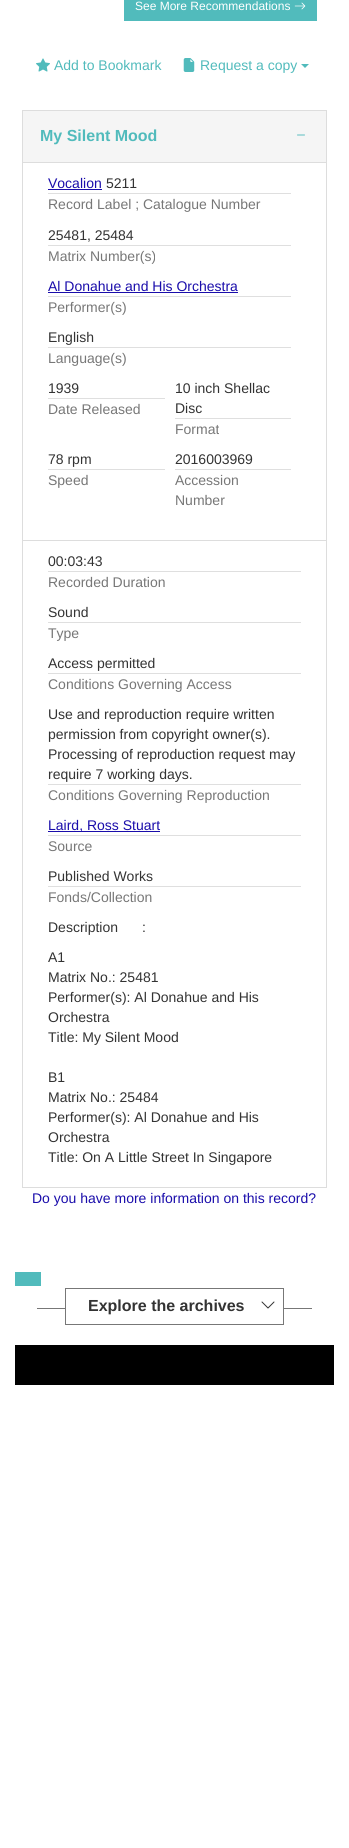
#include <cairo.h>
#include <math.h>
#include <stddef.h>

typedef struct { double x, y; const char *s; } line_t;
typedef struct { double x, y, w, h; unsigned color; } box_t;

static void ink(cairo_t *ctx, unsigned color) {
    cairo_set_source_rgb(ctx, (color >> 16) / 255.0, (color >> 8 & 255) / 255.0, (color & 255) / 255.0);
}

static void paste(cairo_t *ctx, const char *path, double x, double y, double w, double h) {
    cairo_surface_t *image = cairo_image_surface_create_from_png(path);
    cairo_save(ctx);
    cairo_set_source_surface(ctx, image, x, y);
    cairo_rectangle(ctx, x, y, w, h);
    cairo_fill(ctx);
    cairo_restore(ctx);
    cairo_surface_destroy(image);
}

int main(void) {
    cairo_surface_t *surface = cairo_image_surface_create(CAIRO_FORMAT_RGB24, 349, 1848);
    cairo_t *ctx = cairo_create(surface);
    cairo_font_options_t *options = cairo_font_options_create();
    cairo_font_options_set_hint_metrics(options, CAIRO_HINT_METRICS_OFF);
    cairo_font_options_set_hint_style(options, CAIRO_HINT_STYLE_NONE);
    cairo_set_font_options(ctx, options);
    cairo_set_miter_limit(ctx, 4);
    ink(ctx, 0xFFFFFF);
    cairo_paint(ctx);
    ink(ctx, 0x51BBBC);
    cairo_rectangle(ctx, 124, 0, 193, 21);
    cairo_fill(ctx);
    cairo_select_font_face(ctx, "Liberation Sans", CAIRO_FONT_SLANT_NORMAL, CAIRO_FONT_WEIGHT_NORMAL);
    cairo_set_font_size(ctx, 12);
    ink(ctx, 0xFFFFFF);
    cairo_move_to(ctx, 135, 10);
    cairo_show_text(ctx, "See More Recommendations");
    paste(ctx, "media/1.png", 294, 2, 12, 8);
    paste(ctx, "media/2.png", 36, 58, 14, 14);
    cairo_set_font_size(ctx, 14);
    ink(ctx, 0x51BBBC);
    cairo_move_to(ctx, 54, 70);
    cairo_show_text(ctx, "Add to Bookmark");
    paste(ctx, "media/3.png", 183, 58, 12, 14);
    cairo_move_to(ctx, 200, 70);
    cairo_show_text(ctx, "Request a copy");
    cairo_new_path(ctx);
    cairo_move_to(ctx, 301, 64);
    cairo_line_to(ctx, 309, 64);
    cairo_line_to(ctx, 305, 68);
    cairo_close_path(ctx);
    cairo_fill(ctx);
    ink(ctx, 0xF5F5F5);
    cairo_rectangle(ctx, 22.5, 110.5, 304, 52);
    cairo_fill_preserve(ctx);
    ink(ctx, 0xDDDDDD);
    cairo_set_line_width(ctx, 1);
    cairo_stroke(ctx);
    cairo_select_font_face(ctx, "Liberation Sans", CAIRO_FONT_SLANT_NORMAL, CAIRO_FONT_WEIGHT_BOLD);
    cairo_set_font_size(ctx, 16);
    ink(ctx, 0x51BBBC);
    cairo_move_to(ctx, 40, 141);
    cairo_show_text(ctx, "My Silent Mood");
    paste(ctx, "media/4.png", 297, 134, 8, 2);
    cairo_rectangle(ctx, 22.5, 162.5, 304, 378);
    ink(ctx, 0xDDDDDD);
    cairo_stroke(ctx);
    cairo_select_font_face(ctx, "Liberation Sans", CAIRO_FONT_SLANT_NORMAL, CAIRO_FONT_WEIGHT_NORMAL);
    cairo_set_font_size(ctx, 14);
    ink(ctx, 0x1A0DAB);
    cairo_move_to(ctx, 48, 188);
    cairo_show_text(ctx, "Vocalion");
    cairo_rectangle(ctx, 48, 189, 54, 1);
    cairo_fill(ctx);
    ink(ctx, 0x333333);
    cairo_move_to(ctx, 106, 188);
    cairo_show_text(ctx, "5211");
    ink(ctx, 0xDFDFDF);
    cairo_rectangle(ctx, 48, 193, 243, 1);
    cairo_fill(ctx);
    ink(ctx, 0x777777);
    cairo_move_to(ctx, 48, 209);
    cairo_show_text(ctx, "Record Label ; Catalogue Number");
    ink(ctx, 0x333333);
    cairo_move_to(ctx, 48, 240);
    cairo_show_text(ctx, "25481, 25484");
    ink(ctx, 0xDFDFDF);
    cairo_rectangle(ctx, 48, 245, 243, 1);
    cairo_fill(ctx);
    ink(ctx, 0x777777);
    cairo_move_to(ctx, 48, 261);
    cairo_show_text(ctx, "Matrix Number(s)");
    ink(ctx, 0x1A0DAB);
    cairo_move_to(ctx, 48, 291);
    cairo_show_text(ctx, "Al Donahue and His Orchestra");
    cairo_rectangle(ctx, 48, 292, 190, 1);
    cairo_fill(ctx);
    ink(ctx, 0xDFDFDF);
    cairo_rectangle(ctx, 48, 296, 243, 1);
    cairo_fill(ctx);
    ink(ctx, 0x777777);
    cairo_move_to(ctx, 48, 312);
    cairo_show_text(ctx, "Performer(s)");
    ink(ctx, 0x333333);
    cairo_move_to(ctx, 48, 342);
    cairo_show_text(ctx, "English");
    ink(ctx, 0xDFDFDF);
    cairo_rectangle(ctx, 48, 347, 243, 1);
    cairo_fill(ctx);
    ink(ctx, 0x777777);
    cairo_move_to(ctx, 48, 363);
    cairo_show_text(ctx, "Language(s)");
    ink(ctx, 0x333333);
    cairo_move_to(ctx, 48, 393);
    cairo_show_text(ctx, "1939");
    ink(ctx, 0xDFDFDF);
    cairo_rectangle(ctx, 48, 398, 117, 1);
    cairo_fill(ctx);
    ink(ctx, 0x777777);
    cairo_move_to(ctx, 48, 414);
    cairo_show_text(ctx, "Date Released");
    ink(ctx, 0x333333);
    cairo_move_to(ctx, 175, 393);
    cairo_show_text(ctx, "10 inch Shellac");
    cairo_move_to(ctx, 175, 413);
    cairo_show_text(ctx, "Disc");
    ink(ctx, 0xDFDFDF);
    cairo_rectangle(ctx, 175, 418, 116, 1);
    cairo_fill(ctx);
    ink(ctx, 0x777777);
    cairo_move_to(ctx, 175, 434);
    cairo_show_text(ctx, "Format");
    ink(ctx, 0x333333);
    cairo_move_to(ctx, 48, 464);
    cairo_show_text(ctx, "78 rpm");
    ink(ctx, 0xDFDFDF);
    cairo_rectangle(ctx, 48, 469, 117, 1);
    cairo_fill(ctx);
    ink(ctx, 0x777777);
    cairo_move_to(ctx, 48, 485);
    cairo_show_text(ctx, "Speed");
    ink(ctx, 0x333333);
    cairo_move_to(ctx, 175, 464);
    cairo_show_text(ctx, "2016003969");
    ink(ctx, 0xDFDFDF);
    cairo_rectangle(ctx, 175, 469, 116, 1);
    cairo_fill(ctx);
    ink(ctx, 0x777777);
    cairo_move_to(ctx, 175, 485);
    cairo_show_text(ctx, "Accession");
    cairo_move_to(ctx, 175, 505);
    cairo_show_text(ctx, "Number");
    cairo_rectangle(ctx, 22.5, 540.5, 304, 647);
    ink(ctx, 0xDDDDDD);
    cairo_stroke(ctx);
    ink(ctx, 0x333333);
    cairo_move_to(ctx, 48, 566);
    cairo_show_text(ctx, "00:03:43");
    ink(ctx, 0xDFDFDF);
    cairo_rectangle(ctx, 48, 571, 253, 1);
    cairo_fill(ctx);
    ink(ctx, 0x777777);
    cairo_move_to(ctx, 48, 587);
    cairo_show_text(ctx, "Recorded Duration");
    ink(ctx, 0x333333);
    cairo_move_to(ctx, 48, 617);
    cairo_show_text(ctx, "Sound");
    ink(ctx, 0xDFDFDF);
    cairo_rectangle(ctx, 48, 622, 253, 1);
    cairo_fill(ctx);
    ink(ctx, 0x777777);
    cairo_move_to(ctx, 48, 638);
    cairo_show_text(ctx, "Type");
    ink(ctx, 0x333333);
    cairo_move_to(ctx, 48, 668);
    cairo_show_text(ctx, "Access permitted");
    ink(ctx, 0xDFDFDF);
    cairo_rectangle(ctx, 48, 673, 253, 1);
    cairo_fill(ctx);
    ink(ctx, 0x777777);
    cairo_move_to(ctx, 48, 689);
    cairo_show_text(ctx, "Conditions Governing Access");
    ink(ctx, 0x333333);
    {
        static const line_t items[] = {
            {48, 719, "Use and reproduction require written"},
            {48, 739, "permission from copyright owner(s)."},
            {48, 759, "Processing of reproduction request may"},
            {48, 779, "require 7 working days."},
        };
        for (size_t i = 0; i < sizeof items / sizeof *items; i++) {
            cairo_move_to(ctx, items[i].x, items[i].y);
            cairo_show_text(ctx, items[i].s);
        }
    }
    ink(ctx, 0xDFDFDF);
    cairo_rectangle(ctx, 48, 784, 253, 1);
    cairo_fill(ctx);
    ink(ctx, 0x777777);
    cairo_move_to(ctx, 48, 800);
    cairo_show_text(ctx, "Conditions Governing Reproduction");
    ink(ctx, 0x1A0DAB);
    cairo_rectangle(ctx, 48, 831, 112, 1);
    cairo_fill(ctx);
    cairo_move_to(ctx, 48, 830);
    cairo_show_text(ctx, "Laird, Ross Stuart");
    ink(ctx, 0xDFDFDF);
    cairo_rectangle(ctx, 48, 835, 253, 1);
    cairo_fill(ctx);
    ink(ctx, 0x777777);
    cairo_move_to(ctx, 48, 851);
    cairo_show_text(ctx, "Source");
    ink(ctx, 0x333333);
    cairo_move_to(ctx, 48, 881);
    cairo_show_text(ctx, "Published Works");
    ink(ctx, 0xDFDFDF);
    cairo_rectangle(ctx, 48, 886, 253, 1);
    cairo_fill(ctx);
    ink(ctx, 0x777777);
    cairo_move_to(ctx, 48, 902);
    cairo_show_text(ctx, "Fonds/Collection");
    ink(ctx, 0x333333);
    {
        static const line_t items[] = {
            {48, 932, "Description"},
            {142, 932, ":"},
            {48, 962, "A1"},
            {48, 982, "Matrix No.: 25481"},
            {48, 1002, "Performer(s): Al Donahue and His"},
            {48, 1022, "Orchestra"},
            {48, 1042, "Title: My Silent Mood"},
            {48, 1082, "B1"},
            {48, 1102, "Matrix No.: 25484"},
            {48, 1122, "Performer(s): Al Donahue and His"},
            {48, 1142, "Orchestra"},
            {48, 1162, "Title: On A Little Street In Singapore"},
        };
        for (size_t i = 0; i < sizeof items / sizeof *items; i++) {
            cairo_move_to(ctx, items[i].x, items[i].y);
            cairo_show_text(ctx, items[i].s);
        }
    }
    ink(ctx, 0x1A0DAB);
    cairo_move_to(ctx, 32, 1203);
    cairo_show_text(ctx, "Do you have more information on this record?");
    {
        static const box_t items[] = {
            {15, 1272, 26, 14, 0x51BBBC},
            {37, 1308, 275, 1, 0x777777},
            {66, 1308, 217, 1, 0xFFFFFF},
        };
        for (size_t i = 0; i < sizeof items / sizeof *items; i++) {
            ink(ctx, items[i].color);
            cairo_rectangle(ctx, items[i].x, items[i].y, items[i].w, items[i].h);
            cairo_fill(ctx);
        }
    }
    cairo_rectangle(ctx, 65.5, 1288.5, 218, 36);
    ink(ctx, 0x777777);
    cairo_stroke(ctx);
    cairo_select_font_face(ctx, "Liberation Sans", CAIRO_FONT_SLANT_NORMAL, CAIRO_FONT_WEIGHT_BOLD);
    cairo_set_font_size(ctx, 16);
    ink(ctx, 0x333333);
    cairo_move_to(ctx, 88, 1311);
    cairo_show_text(ctx, "Explore the archives");
    paste(ctx, "media/5.png", 261, 1301, 14, 8);
    ink(ctx, 0x000000);
    cairo_rectangle(ctx, 15, 1345, 319, 40);
    cairo_fill(ctx);
    cairo_surface_write_to_png(surface, "image.png");
    cairo_font_options_destroy(options);
    cairo_destroy(ctx);
    cairo_surface_destroy(surface);
    return 0;
}
